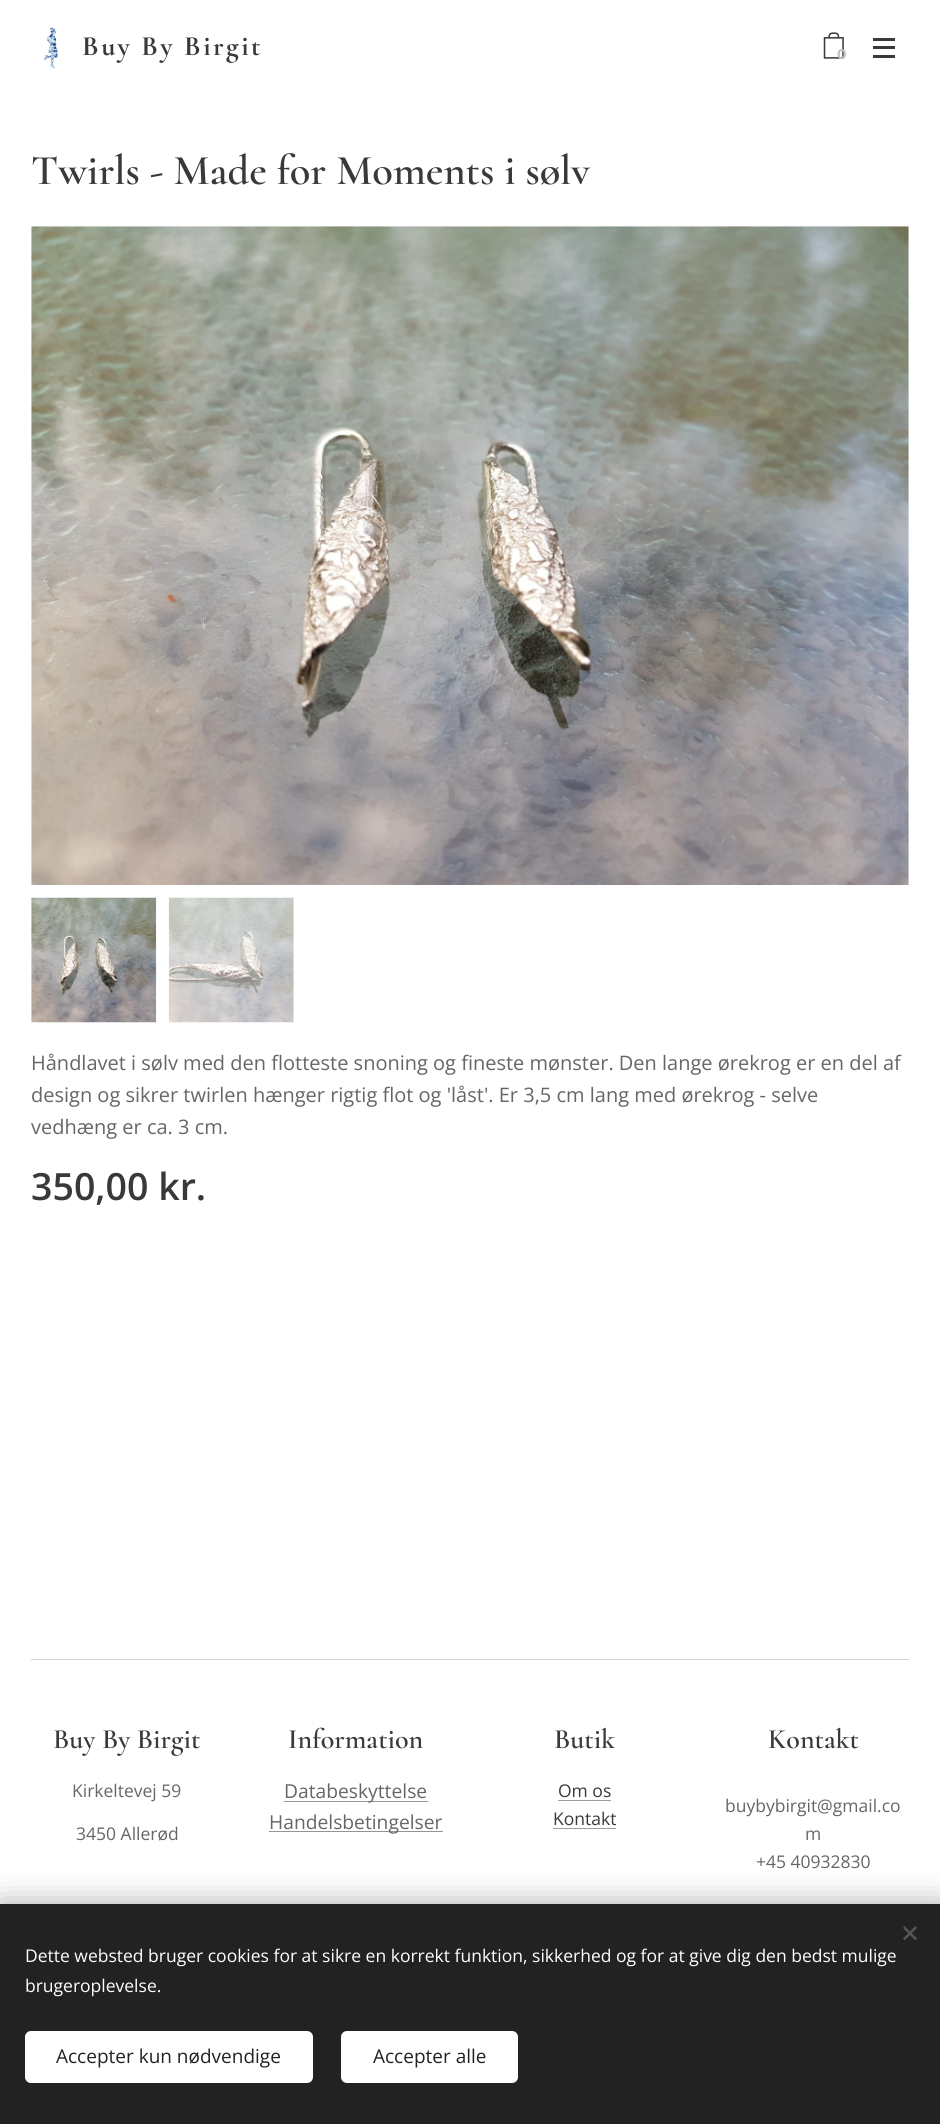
#include <cairo.h>
#include <math.h>
#include <stddef.h>

typedef struct { double x, y; const char *s; } line_t;
typedef struct { double x, y, w, h; unsigned color; } box_t;

static void ink(cairo_t *ctx, unsigned color) {
    cairo_set_source_rgb(ctx, (color >> 16) / 255.0, (color >> 8 & 255) / 255.0, (color & 255) / 255.0);
}

static void write_spaced(cairo_t *ctx, double x, double y, const char *s, double letter, double word) {
    cairo_move_to(ctx, x, y);
    while (*s) {
        char ch[5] = {0};
        int n = 0;
        do ch[n++] = *s++; while ((*s & 0xC0) == 0x80);
        cairo_show_text(ctx, ch);
        cairo_rel_move_to(ctx, letter + word * (*ch == ' '), 0);
    }
}

static void round_path(cairo_t *ctx, double x, double y, double w, double h, double r) {
    cairo_new_sub_path(ctx);
    cairo_arc(ctx, x + w - r, y + h - r, r, 0, M_PI / 2);
    cairo_arc(ctx, x + r, y + h - r, r, M_PI / 2, M_PI);
    cairo_arc(ctx, x + r, y + r, r, M_PI, 1.5 * M_PI);
    cairo_arc(ctx, x + w - r, y + r, r, 1.5 * M_PI, 2 * M_PI);
    cairo_close_path(ctx);
}

static void blur_box(cairo_t *ctx, double x, double y, double w, double h, double r, double blur, double alpha) {
    cairo_push_group_with_content(ctx, CAIRO_CONTENT_ALPHA);
    cairo_set_operator(ctx, CAIRO_OPERATOR_SOURCE);
    for (int i = 15; i >= -15 && fmin(w, h) + blur * i / 3 > 0; i -= 2) {
        double e = blur * i / 6;
        cairo_set_source_rgba(ctx, 0, 0, 0, alpha * erfc((i - 1) / 8.5) / 2);
        round_path(ctx, x - e, y - e, w + 2 * e, h + 2 * e, fmax(0, fmin(r + e + blur * .6, fmin(w, h) / 2 + e)));
        cairo_fill(ctx);
    }
    cairo_pattern_t *soft = cairo_pop_group(ctx);
    cairo_mask(ctx, soft);
    cairo_pattern_destroy(soft);
}

static void paste(cairo_t *ctx, const char *path, double x, double y, double w, double h) {
    cairo_surface_t *image = cairo_image_surface_create_from_png(path);
    cairo_save(ctx);
    cairo_set_source_surface(ctx, image, x, y);
    cairo_rectangle(ctx, x, y, w, h);
    cairo_fill(ctx);
    cairo_restore(ctx);
    cairo_surface_destroy(image);
}

int main(void) {
    cairo_surface_t *surface = cairo_image_surface_create(CAIRO_FORMAT_RGB24, 940, 2124);
    cairo_t *ctx = cairo_create(surface);
    cairo_font_options_t *options = cairo_font_options_create();
    cairo_font_options_set_hint_metrics(options, CAIRO_HINT_METRICS_OFF);
    cairo_font_options_set_hint_style(options, CAIRO_HINT_STYLE_NONE);
    cairo_set_font_options(ctx, options);
    cairo_set_miter_limit(ctx, 4);
    ink(ctx, 0xFFFFFF);
    cairo_paint(ctx);
    paste(ctx, "media/1.png", 44, 27, 14, 42);
    cairo_select_font_face(ctx, "Cormorant", CAIRO_FONT_SLANT_NORMAL, CAIRO_FONT_WEIGHT_BOLD);
    cairo_set_font_size(ctx, 28);
    ink(ctx, 0x393939);
    write_spaced(ctx, 82, 55, "Buy By Birgit", 2.5, 0);
    paste(ctx, "media/2.png", 823, 32, 21, 27);
    cairo_select_font_face(ctx, "Montserrat", CAIRO_FONT_SLANT_NORMAL, CAIRO_FONT_WEIGHT_BOLD);
    cairo_set_font_size(ctx, 14);
    ink(ctx, 0xC3C3C3);
    cairo_move_to(ctx, 837, 59);
    cairo_show_text(ctx, "0");
    {
        static const box_t items[] = {
            {873, 46, 22, 3, 0x393939},
            {873, 38, 22, 3, 0x393939},
            {873, 55, 22, 3, 0x393939},
        };
        for (size_t i = 0; i < sizeof items / sizeof *items; i++) {
            ink(ctx, items[i].color);
            cairo_rectangle(ctx, items[i].x, items[i].y, items[i].w, items[i].h);
            cairo_fill(ctx);
        }
    }
    cairo_select_font_face(ctx, "Cormorant SemiBold", CAIRO_FONT_SLANT_NORMAL, CAIRO_FONT_WEIGHT_NORMAL);
    cairo_set_font_size(ctx, 42.5);
    cairo_move_to(ctx, 31, 184);
    cairo_show_text(ctx, "Twirls - Made for Moments i sølv");
    paste(ctx, "media/3.png", 31, 226, 878, 659);
    paste(ctx, "media/4.png", 31, 897, 126, 126);
    paste(ctx, "media/5.png", 168, 897, 126, 126);
    cairo_select_font_face(ctx, "Open Sans", CAIRO_FONT_SLANT_NORMAL, CAIRO_FONT_WEIGHT_NORMAL);
    cairo_set_font_size(ctx, 20);
    ink(ctx, 0x666666);
    {
        static const line_t items[] = {
            {31, 1070, "Håndlavet i sølv med den flotteste snoning og fineste mønster. Den lange ørekrog er en del af"},
            {31, 1102, "design og sikrer twirlen hænger rigtig flot og 'låst'. Er 3,5 cm lang med ørekrog - selve"},
            {31, 1134, "vedhæng er ca. 3 cm."},
        };
        for (size_t i = 0; i < sizeof items / sizeof *items; i++) {
            cairo_move_to(ctx, items[i].x, items[i].y);
            cairo_show_text(ctx, items[i].s);
        }
    }
    cairo_select_font_face(ctx, "Open Sans SemiBold", CAIRO_FONT_SLANT_NORMAL, CAIRO_FONT_WEIGHT_NORMAL);
    cairo_set_font_size(ctx, 37.5);
    ink(ctx, 0x393939);
    cairo_move_to(ctx, 31, 1200);
    cairo_show_text(ctx, "350,00 kr.");
    ink(ctx, 0xD4D4D4);
    cairo_rectangle(ctx, 31, 1659, 878, 1);
    cairo_fill(ctx);
    cairo_select_font_face(ctx, "Cormorant SemiBold", CAIRO_FONT_SLANT_NORMAL, CAIRO_FONT_WEIGHT_NORMAL);
    cairo_set_font_size(ctx, 28);
    ink(ctx, 0x393939);
    cairo_move_to(ctx, 53, 1748);
    cairo_show_text(ctx, "Buy By Birgit");
    cairo_select_font_face(ctx, "Open Sans", CAIRO_FONT_SLANT_NORMAL, CAIRO_FONT_WEIGHT_NORMAL);
    cairo_set_font_size(ctx, 17.5);
    ink(ctx, 0x666666);
    cairo_move_to(ctx, 72, 1797);
    cairo_show_text(ctx, "Kirkeltevej 59");
    cairo_move_to(ctx, 76, 1840);
    cairo_show_text(ctx, "3450 Allerød");
    cairo_select_font_face(ctx, "Cormorant SemiBold", CAIRO_FONT_SLANT_NORMAL, CAIRO_FONT_WEIGHT_NORMAL);
    cairo_set_font_size(ctx, 28);
    ink(ctx, 0x393939);
    cairo_move_to(ctx, 288, 1748);
    cairo_show_text(ctx, "Information");
    ink(ctx, 0x949494);
    cairo_rectangle(ctx, 284, 1801, 144, 1);
    cairo_fill(ctx);
    cairo_select_font_face(ctx, "Open Sans", CAIRO_FONT_SLANT_NORMAL, CAIRO_FONT_WEIGHT_NORMAL);
    cairo_set_font_size(ctx, 19.25);
    ink(ctx, 0x666666);
    cairo_move_to(ctx, 284, 1798);
    cairo_show_text(ctx, "Databeskyttelse");
    ink(ctx, 0x949494);
    cairo_rectangle(ctx, 269, 1831, 174, 1);
    cairo_fill(ctx);
    ink(ctx, 0x666666);
    cairo_move_to(ctx, 269, 1829);
    cairo_show_text(ctx, "Handelsbetingelser");
    cairo_select_font_face(ctx, "Cormorant SemiBold", CAIRO_FONT_SLANT_NORMAL, CAIRO_FONT_WEIGHT_NORMAL);
    cairo_set_font_size(ctx, 28);
    ink(ctx, 0x393939);
    cairo_move_to(ctx, 554, 1748);
    cairo_show_text(ctx, "Butik");
    cairo_select_font_face(ctx, "Open Sans", CAIRO_FONT_SLANT_NORMAL, CAIRO_FONT_WEIGHT_NORMAL);
    cairo_set_font_size(ctx, 17.5);
    cairo_move_to(ctx, 558, 1797);
    cairo_show_text(ctx, "Om os");
    ink(ctx, 0x9C9C9C);
    cairo_rectangle(ctx, 558, 1800, 53, 1);
    cairo_fill(ctx);
    ink(ctx, 0x393939);
    cairo_move_to(ctx, 553, 1825);
    cairo_show_text(ctx, "Kontakt");
    ink(ctx, 0x9C9C9C);
    cairo_rectangle(ctx, 553, 1828, 63, 1);
    cairo_fill(ctx);
    cairo_select_font_face(ctx, "Cormorant SemiBold", CAIRO_FONT_SLANT_NORMAL, CAIRO_FONT_WEIGHT_NORMAL);
    cairo_set_font_size(ctx, 28);
    ink(ctx, 0x393939);
    cairo_move_to(ctx, 768, 1748);
    cairo_show_text(ctx, "Kontakt");
    cairo_select_font_face(ctx, "Open Sans", CAIRO_FONT_SLANT_NORMAL, CAIRO_FONT_WEIGHT_NORMAL);
    cairo_set_font_size(ctx, 17.5);
    ink(ctx, 0x666666);
    {
        static const line_t items[] = {
            {725, 1812, "buybybirgit@gmail.co"},
            {805, 1840, "m"},
            {756, 1868, "+45 40932830"},
        };
        for (size_t i = 0; i < sizeof items / sizeof *items; i++) {
            cairo_move_to(ctx, items[i].x, items[i].y);
            cairo_show_text(ctx, items[i].s);
        }
    }
    ink(ctx, 0x000000);
    blur_box(ctx, 0, 1904, 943, 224, 0, 15.5, 0.33);
    ink(ctx, 0x222222);
    cairo_rectangle(ctx, 0, 1904, 940, 220);
    cairo_fill(ctx);
    ink(ctx, 0x555555);
    cairo_new_path(ctx);
    cairo_move_to(ctx, 903, 1938.5);
    cairo_line_to(ctx, 915.5, 1926);
    cairo_line_to(ctx, 917, 1928);
    cairo_line_to(ctx, 904.5, 1940.5);
    cairo_close_path(ctx);
    cairo_fill(ctx);
    cairo_new_path(ctx);
    cairo_move_to(ctx, 904.5, 1926);
    cairo_line_to(ctx, 917, 1938.5);
    cairo_line_to(ctx, 915.5, 1940.5);
    cairo_line_to(ctx, 903, 1928);
    cairo_close_path(ctx);
    cairo_fill(ctx);
    ink(ctx, 0xFFFFFF);
    cairo_move_to(ctx, 25, 1962);
    cairo_show_text(ctx, "Dette websted bruger cookies for at sikre en korrekt funktion, sikkerhed og for at give dig den bedst mulige");
    cairo_move_to(ctx, 25, 1992);
    cairo_show_text(ctx, "brugeroplevelse.");
    round_path(ctx, 25, 2031, 288, 52, 6);
    cairo_fill(ctx);
    cairo_set_font_size(ctx, 19);
    ink(ctx, 0x222222);
    cairo_move_to(ctx, 56, 2063);
    cairo_show_text(ctx, "Accepter kun nødvendige");
    ink(ctx, 0xFFFFFF);
    round_path(ctx, 341, 2031, 177, 52, 6);
    cairo_fill(ctx);
    ink(ctx, 0x222222);
    cairo_move_to(ctx, 373, 2063);
    cairo_show_text(ctx, "Accepter alle");
    cairo_surface_write_to_png(surface, "image.png");
    cairo_font_options_destroy(options);
    cairo_destroy(ctx);
    cairo_surface_destroy(surface);
    return 0;
}
